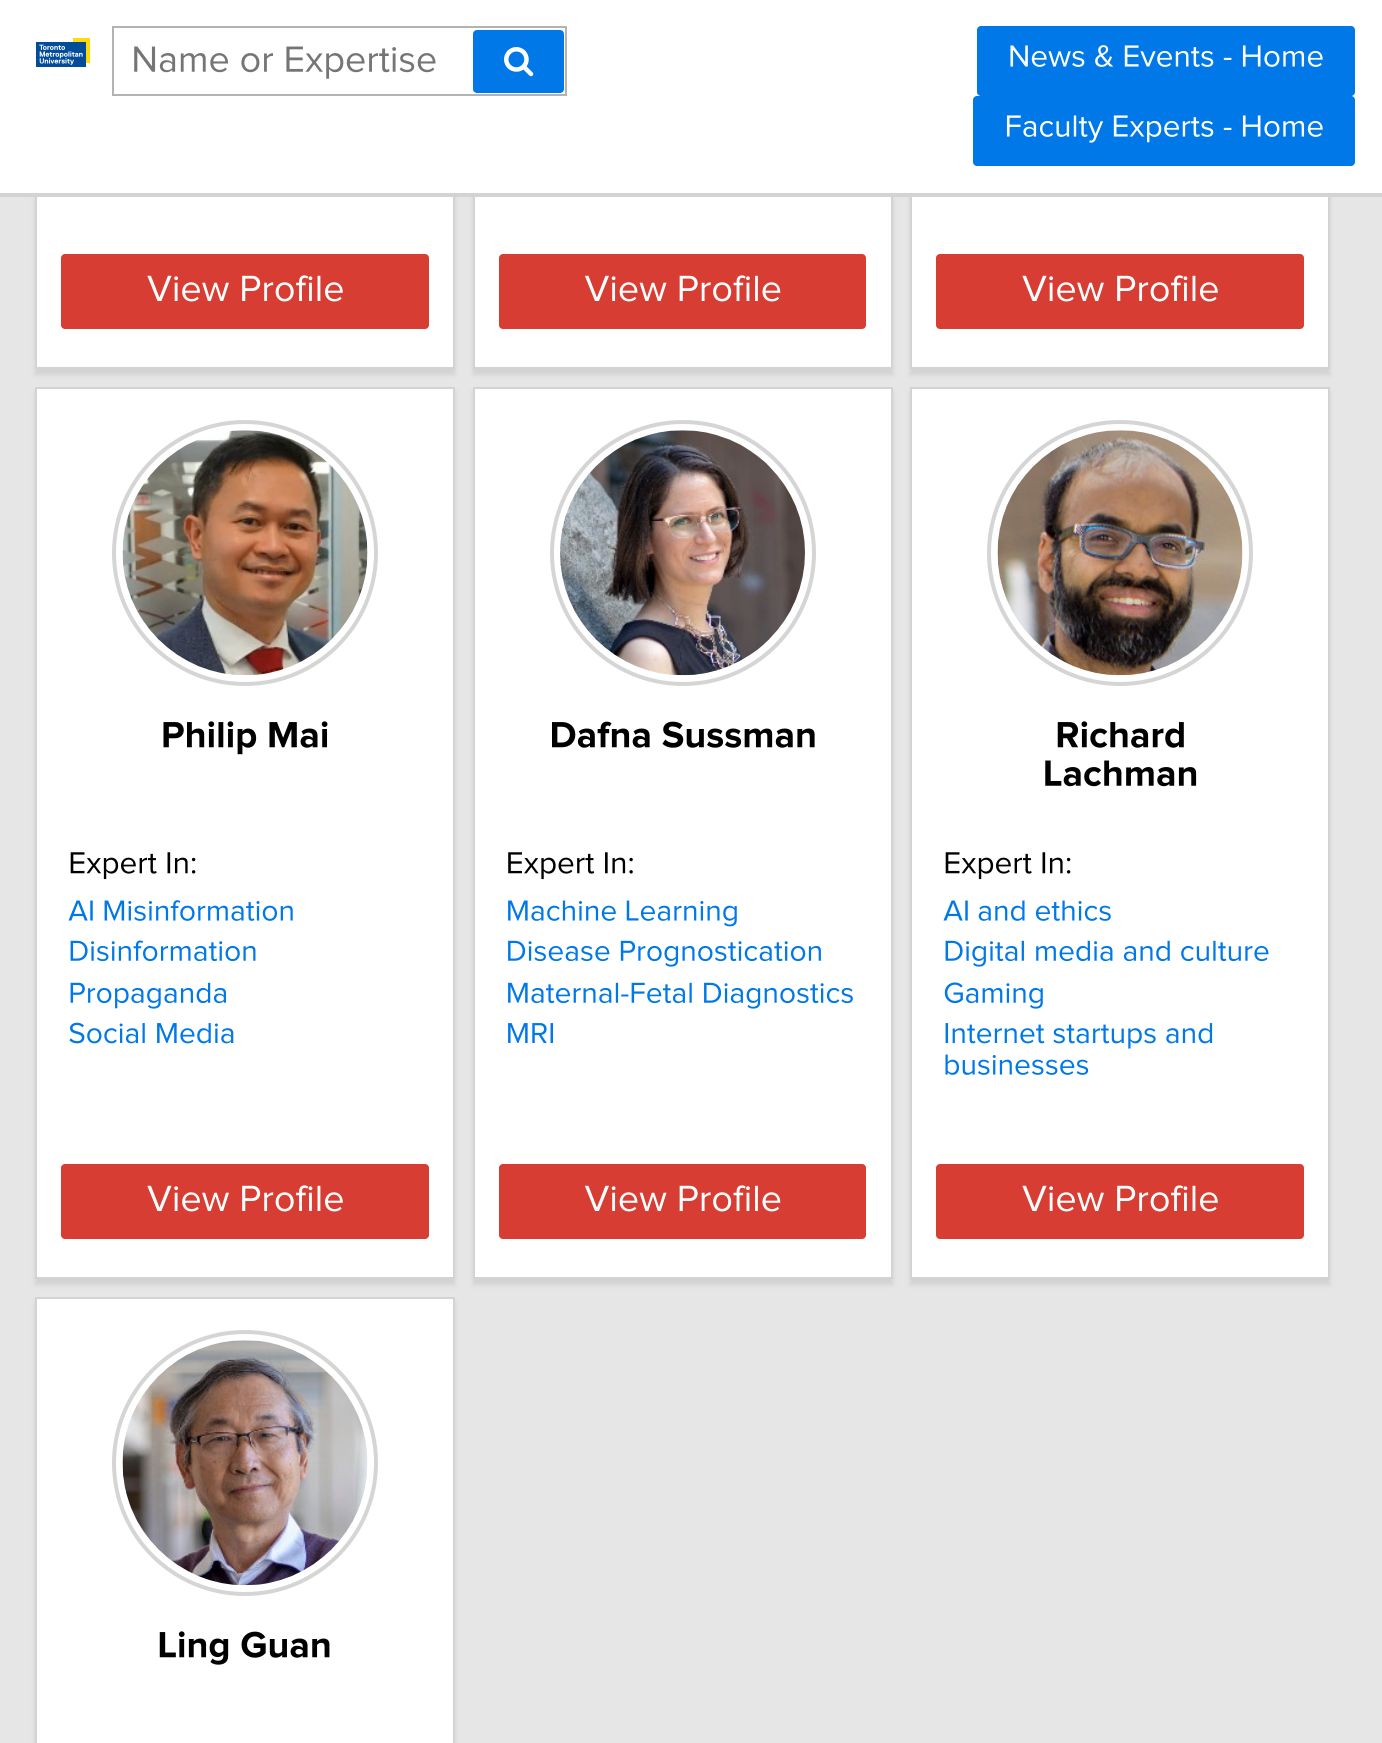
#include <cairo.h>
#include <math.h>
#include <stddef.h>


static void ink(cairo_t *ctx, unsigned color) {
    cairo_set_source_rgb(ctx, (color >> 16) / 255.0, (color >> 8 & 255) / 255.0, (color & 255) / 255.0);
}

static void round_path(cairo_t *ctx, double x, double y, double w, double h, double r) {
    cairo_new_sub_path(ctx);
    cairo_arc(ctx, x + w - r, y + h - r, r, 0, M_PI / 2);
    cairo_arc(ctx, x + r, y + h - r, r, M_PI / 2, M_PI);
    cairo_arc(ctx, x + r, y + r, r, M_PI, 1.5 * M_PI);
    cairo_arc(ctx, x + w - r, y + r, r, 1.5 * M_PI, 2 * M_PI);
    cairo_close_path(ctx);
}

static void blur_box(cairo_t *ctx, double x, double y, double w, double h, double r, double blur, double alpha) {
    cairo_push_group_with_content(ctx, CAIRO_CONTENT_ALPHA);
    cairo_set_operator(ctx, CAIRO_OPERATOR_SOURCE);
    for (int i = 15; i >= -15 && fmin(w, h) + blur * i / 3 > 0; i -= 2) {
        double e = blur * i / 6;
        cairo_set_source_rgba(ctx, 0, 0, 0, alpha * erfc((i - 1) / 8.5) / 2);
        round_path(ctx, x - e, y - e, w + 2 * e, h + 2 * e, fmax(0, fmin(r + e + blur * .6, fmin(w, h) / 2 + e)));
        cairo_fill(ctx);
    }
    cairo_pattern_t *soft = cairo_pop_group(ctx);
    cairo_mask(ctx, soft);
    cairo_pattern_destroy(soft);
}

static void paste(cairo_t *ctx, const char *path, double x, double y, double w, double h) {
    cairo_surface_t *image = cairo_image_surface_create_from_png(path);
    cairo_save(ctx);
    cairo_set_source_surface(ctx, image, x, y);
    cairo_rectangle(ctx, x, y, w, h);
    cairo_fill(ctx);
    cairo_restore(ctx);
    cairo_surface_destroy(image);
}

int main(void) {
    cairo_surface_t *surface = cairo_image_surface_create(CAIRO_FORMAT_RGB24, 1382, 1743);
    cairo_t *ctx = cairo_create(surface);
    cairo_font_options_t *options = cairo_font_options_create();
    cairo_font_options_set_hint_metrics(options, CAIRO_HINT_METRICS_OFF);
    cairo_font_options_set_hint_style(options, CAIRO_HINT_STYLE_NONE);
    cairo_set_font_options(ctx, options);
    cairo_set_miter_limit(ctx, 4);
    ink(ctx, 0xE6E6E6);
    cairo_paint(ctx);
    ink(ctx, 0x000000);
    blur_box(ctx, 35, -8, 420, 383, 0, 2.5, 0.09);
    ink(ctx, 0xFFFFFF);
    cairo_rectangle(ctx, 37, 197, 416, 170);
    cairo_fill(ctx);
    cairo_rectangle(ctx, 36, -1, 418, 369);
    ink(ctx, 0xD3D3D3);
    cairo_stroke(ctx);
    ink(ctx, 0xD73D32);
    round_path(ctx, 61, 254, 368, 75, 4);
    cairo_fill(ctx);
    paste(ctx, "media/1.png", 147, 275, 196, 27);
    ink(ctx, 0x000000);
    blur_box(ctx, 473, -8, 420, 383, 0, 2.5, 0.09);
    ink(ctx, 0xFFFFFF);
    cairo_rectangle(ctx, 475, 197, 416, 170);
    cairo_fill(ctx);
    cairo_rectangle(ctx, 474, -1, 418, 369);
    ink(ctx, 0xD3D3D3);
    cairo_stroke(ctx);
    ink(ctx, 0xD73D32);
    round_path(ctx, 499, 254, 367, 75, 4);
    cairo_fill(ctx);
    paste(ctx, "media/2.png", 584, 275, 197, 27);
    ink(ctx, 0x000000);
    blur_box(ctx, 910, -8, 420, 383, 0, 2.5, 0.09);
    ink(ctx, 0xFFFFFF);
    cairo_rectangle(ctx, 912, 197, 416, 170);
    cairo_fill(ctx);
    cairo_rectangle(ctx, 911, -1, 418, 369);
    ink(ctx, 0xD3D3D3);
    cairo_stroke(ctx);
    ink(ctx, 0xD73D32);
    round_path(ctx, 936, 254, 368, 75, 4);
    cairo_fill(ctx);
    paste(ctx, "media/1.png", 1022, 275, 196, 27);
    ink(ctx, 0x000000);
    blur_box(ctx, 35, 392, 420, 893, 0, 2.5, 0.09);
    ink(ctx, 0xFFFFFF);
    cairo_rectangle(ctx, 36, 388, 418, 890);
    cairo_fill_preserve(ctx);
    ink(ctx, 0xD3D3D3);
    cairo_stroke(ctx);
    cairo_arc(ctx, 245, 553, 131, 0, 2 * M_PI);
    ink(ctx, 0xD5D5D5);
    cairo_set_line_width(ctx, 4);
    cairo_stroke(ctx);
    paste(ctx, "media/3.png", 122, 430, 246, 245);
    paste(ctx, "media/4.png", 163, 721, 165, 34);
    paste(ctx, "media/5.png", 70, 852, 126, 28);
    paste(ctx, "media/6.png", 68, 900, 25, 21);
    paste(ctx, "media/7.png", 104, 900, 189, 21);
    paste(ctx, "media/8.png", 70, 940, 186, 22);
    paste(ctx, "media/9.png", 70, 982, 156, 27);
    paste(ctx, "media/10.png", 69, 1022, 165, 22);
    ink(ctx, 0xD73D32);
    round_path(ctx, 61, 1164, 368, 75, 4);
    cairo_fill(ctx);
    paste(ctx, "media/1.png", 147, 1185, 196, 27);
    ink(ctx, 0x000000);
    blur_box(ctx, 473, 392, 420, 893, 0, 2.5, 0.09);
    ink(ctx, 0xFFFFFF);
    cairo_rectangle(ctx, 474, 388, 418, 890);
    cairo_fill_preserve(ctx);
    ink(ctx, 0xD3D3D3);
    cairo_set_line_width(ctx, 2);
    cairo_stroke(ctx);
    cairo_arc(ctx, 683, 553, 131, 0, 2 * M_PI);
    ink(ctx, 0xD5D5D5);
    cairo_set_line_width(ctx, 4);
    cairo_stroke(ctx);
    paste(ctx, "media/11.png", 560, 430, 245, 246);
    paste(ctx, "media/12.png", 552, 721, 263, 27);
    paste(ctx, "media/13.png", 508, 852, 125, 28);
    paste(ctx, "media/14.png", 508, 900, 108, 21);
    paste(ctx, "media/15.png", 626, 900, 111, 27);
    paste(ctx, "media/16.png", 508, 940, 313, 27);
    paste(ctx, "media/17.png", 508, 982, 345, 27);
    paste(ctx, "media/18.png", 508, 1023, 45, 20);
    ink(ctx, 0xD73D32);
    round_path(ctx, 499, 1164, 367, 75, 4);
    cairo_fill(ctx);
    paste(ctx, "media/2.png", 584, 1185, 197, 27);
    ink(ctx, 0x000000);
    blur_box(ctx, 910, 392, 420, 893, 0, 2.5, 0.09);
    ink(ctx, 0xFFFFFF);
    cairo_rectangle(ctx, 911, 388, 418, 890);
    cairo_fill_preserve(ctx);
    ink(ctx, 0xD3D3D3);
    cairo_set_line_width(ctx, 2);
    cairo_stroke(ctx);
    cairo_arc(ctx, 1120, 553, 131, 0, 2 * M_PI);
    ink(ctx, 0xD5D5D5);
    cairo_set_line_width(ctx, 4);
    cairo_stroke(ctx);
    paste(ctx, "media/19.png", 997, 430, 246, 246);
    paste(ctx, "media/20.png", 1057, 721, 127, 27);
    paste(ctx, "media/21.png", 1045, 760, 152, 27);
    paste(ctx, "media/5.png", 945, 852, 126, 28);
    paste(ctx, "media/6.png", 943, 900, 25, 21);
    paste(ctx, "media/22.png", 978, 900, 133, 21);
    paste(ctx, "media/23.png", 945, 940, 324, 27);
    paste(ctx, "media/24.png", 944, 982, 99, 27);
    paste(ctx, "media/25.png", 945, 1023, 268, 26);
    paste(ctx, "media/26.png", 945, 1054, 144, 21);
    ink(ctx, 0xD73D32);
    round_path(ctx, 936, 1164, 368, 75, 4);
    cairo_fill(ctx);
    paste(ctx, "media/1.png", 1022, 1185, 196, 27);
    ink(ctx, 0x000000);
    blur_box(ctx, 35, 1302, 420, 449, 0, 2.5, 0.09);
    ink(ctx, 0xFFFFFF);
    cairo_rectangle(ctx, 36, 1298, 418, 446);
    cairo_fill_preserve(ctx);
    ink(ctx, 0xD3D3D3);
    cairo_set_line_width(ctx, 2);
    cairo_stroke(ctx);
    cairo_arc(ctx, 245, 1463, 131, 0, 2 * M_PI);
    ink(ctx, 0xD5D5D5);
    cairo_set_line_width(ctx, 4);
    cairo_stroke(ctx);
    paste(ctx, "media/27.png", 122, 1340, 246, 246);
    paste(ctx, "media/28.png", 159, 1631, 171, 34);
    ink(ctx, 0xFFFFFF);
    cairo_rectangle(ctx, 0, 0, 1382, 193);
    cairo_fill(ctx);
    ink(ctx, 0xD3D3D3);
    cairo_rectangle(ctx, 0, 193, 1382, 4);
    cairo_fill(ctx);
    paste(ctx, "media/29.png", 36, 38, 54, 29);
    cairo_rectangle(ctx, 113, 27, 453, 68);
    ink(ctx, 0xB3B3B3);
    cairo_set_line_width(ctx, 2);
    cairo_stroke(ctx);
    paste(ctx, "media/30.png", 134, 46, 302, 33);
    ink(ctx, 0x0078E7);
    round_path(ctx, 473, 30, 91, 63, 4);
    cairo_fill(ctx);
    paste(ctx, "media/31.png", 504, 47, 30, 30);
    round_path(ctx, 977, 26, 378, 70, 4);
    cairo_fill(ctx);
    paste(ctx, "media/32.png", 1010, 45, 313, 22);
    round_path(ctx, 973, 96, 382, 70, 4);
    cairo_fill(ctx);
    paste(ctx, "media/33.png", 1006, 115, 317, 28);
    cairo_surface_write_to_png(surface, "image.png");
    cairo_font_options_destroy(options);
    cairo_destroy(ctx);
    cairo_surface_destroy(surface);
    return 0;
}
